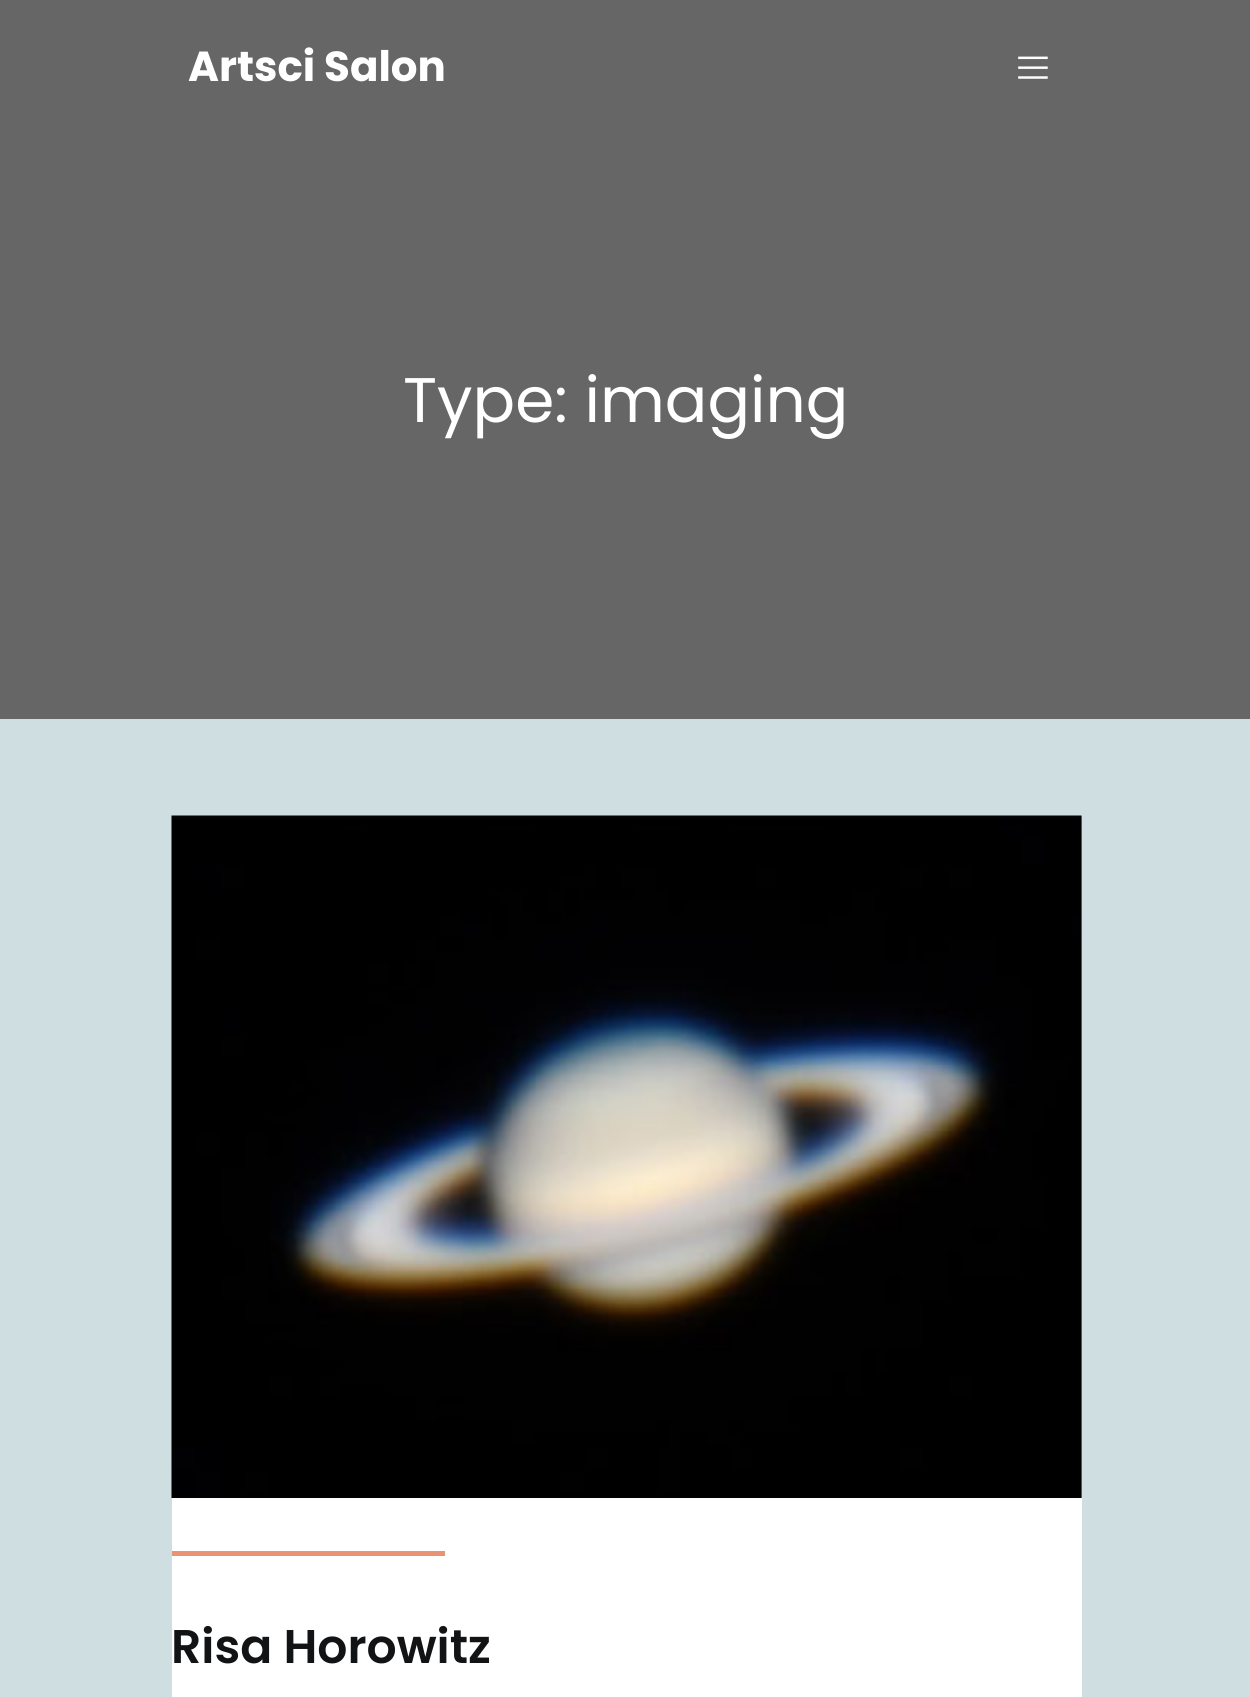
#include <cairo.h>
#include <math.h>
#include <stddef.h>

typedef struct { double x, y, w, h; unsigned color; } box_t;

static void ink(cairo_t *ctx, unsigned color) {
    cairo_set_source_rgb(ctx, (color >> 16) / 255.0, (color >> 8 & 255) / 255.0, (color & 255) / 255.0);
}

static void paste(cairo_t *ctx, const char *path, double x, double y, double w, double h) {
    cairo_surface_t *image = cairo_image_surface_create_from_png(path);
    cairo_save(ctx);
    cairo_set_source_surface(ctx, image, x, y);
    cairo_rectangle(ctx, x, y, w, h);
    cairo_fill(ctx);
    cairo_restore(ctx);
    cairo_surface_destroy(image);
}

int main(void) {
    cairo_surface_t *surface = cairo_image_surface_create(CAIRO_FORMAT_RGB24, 1250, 1697);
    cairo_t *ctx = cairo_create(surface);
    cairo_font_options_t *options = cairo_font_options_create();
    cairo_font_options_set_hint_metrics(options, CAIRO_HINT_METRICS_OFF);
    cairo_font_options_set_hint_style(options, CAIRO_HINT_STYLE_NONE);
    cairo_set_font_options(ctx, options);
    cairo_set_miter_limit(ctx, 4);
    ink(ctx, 0x666666);
    cairo_paint(ctx);
    cairo_select_font_face(ctx, "Poppins", CAIRO_FONT_SLANT_NORMAL, CAIRO_FONT_WEIGHT_BOLD);
    cairo_set_font_size(ctx, 42);
    ink(ctx, 0xFFFFFF);
    cairo_move_to(ctx, 188, 81);
    cairo_show_text(ctx, "Artsci Salon");
    paste(ctx, "media/1.png", 1018, 56, 30, 23);
    cairo_select_font_face(ctx, "Poppins", CAIRO_FONT_SLANT_NORMAL, CAIRO_FONT_WEIGHT_NORMAL);
    cairo_set_font_size(ctx, 63);
    cairo_move_to(ctx, 403, 422);
    cairo_show_text(ctx, "Type: imaging");
    {
        static const box_t items[] = {
            {0, 719, 1250, 978, 0xCFDEE1},
            {172, 1498, 910, 199, 0xFFFFFF},
            {1081, 816, 1, 682, 0xA3ACBE},
        };
        for (size_t i = 0; i < sizeof items / sizeof *items; i++) {
            ink(ctx, items[i].color);
            cairo_rectangle(ctx, items[i].x, items[i].y, items[i].w, items[i].h);
            cairo_fill(ctx);
        }
    }
    paste(ctx, "media/2.png", 171, 815, 911, 683);
    ink(ctx, 0xEA9374);
    cairo_rectangle(ctx, 172, 1551, 273, 5);
    cairo_fill(ctx);
    cairo_select_font_face(ctx, "Poppins SemiBold", CAIRO_FONT_SLANT_NORMAL, CAIRO_FONT_WEIGHT_NORMAL);
    cairo_set_font_size(ctx, 47.25);
    ink(ctx, 0x121315);
    cairo_move_to(ctx, 171, 1663);
    cairo_show_text(ctx, "Risa Horowitz");
    cairo_surface_write_to_png(surface, "image.png");
    cairo_font_options_destroy(options);
    cairo_destroy(ctx);
    cairo_surface_destroy(surface);
    return 0;
}
